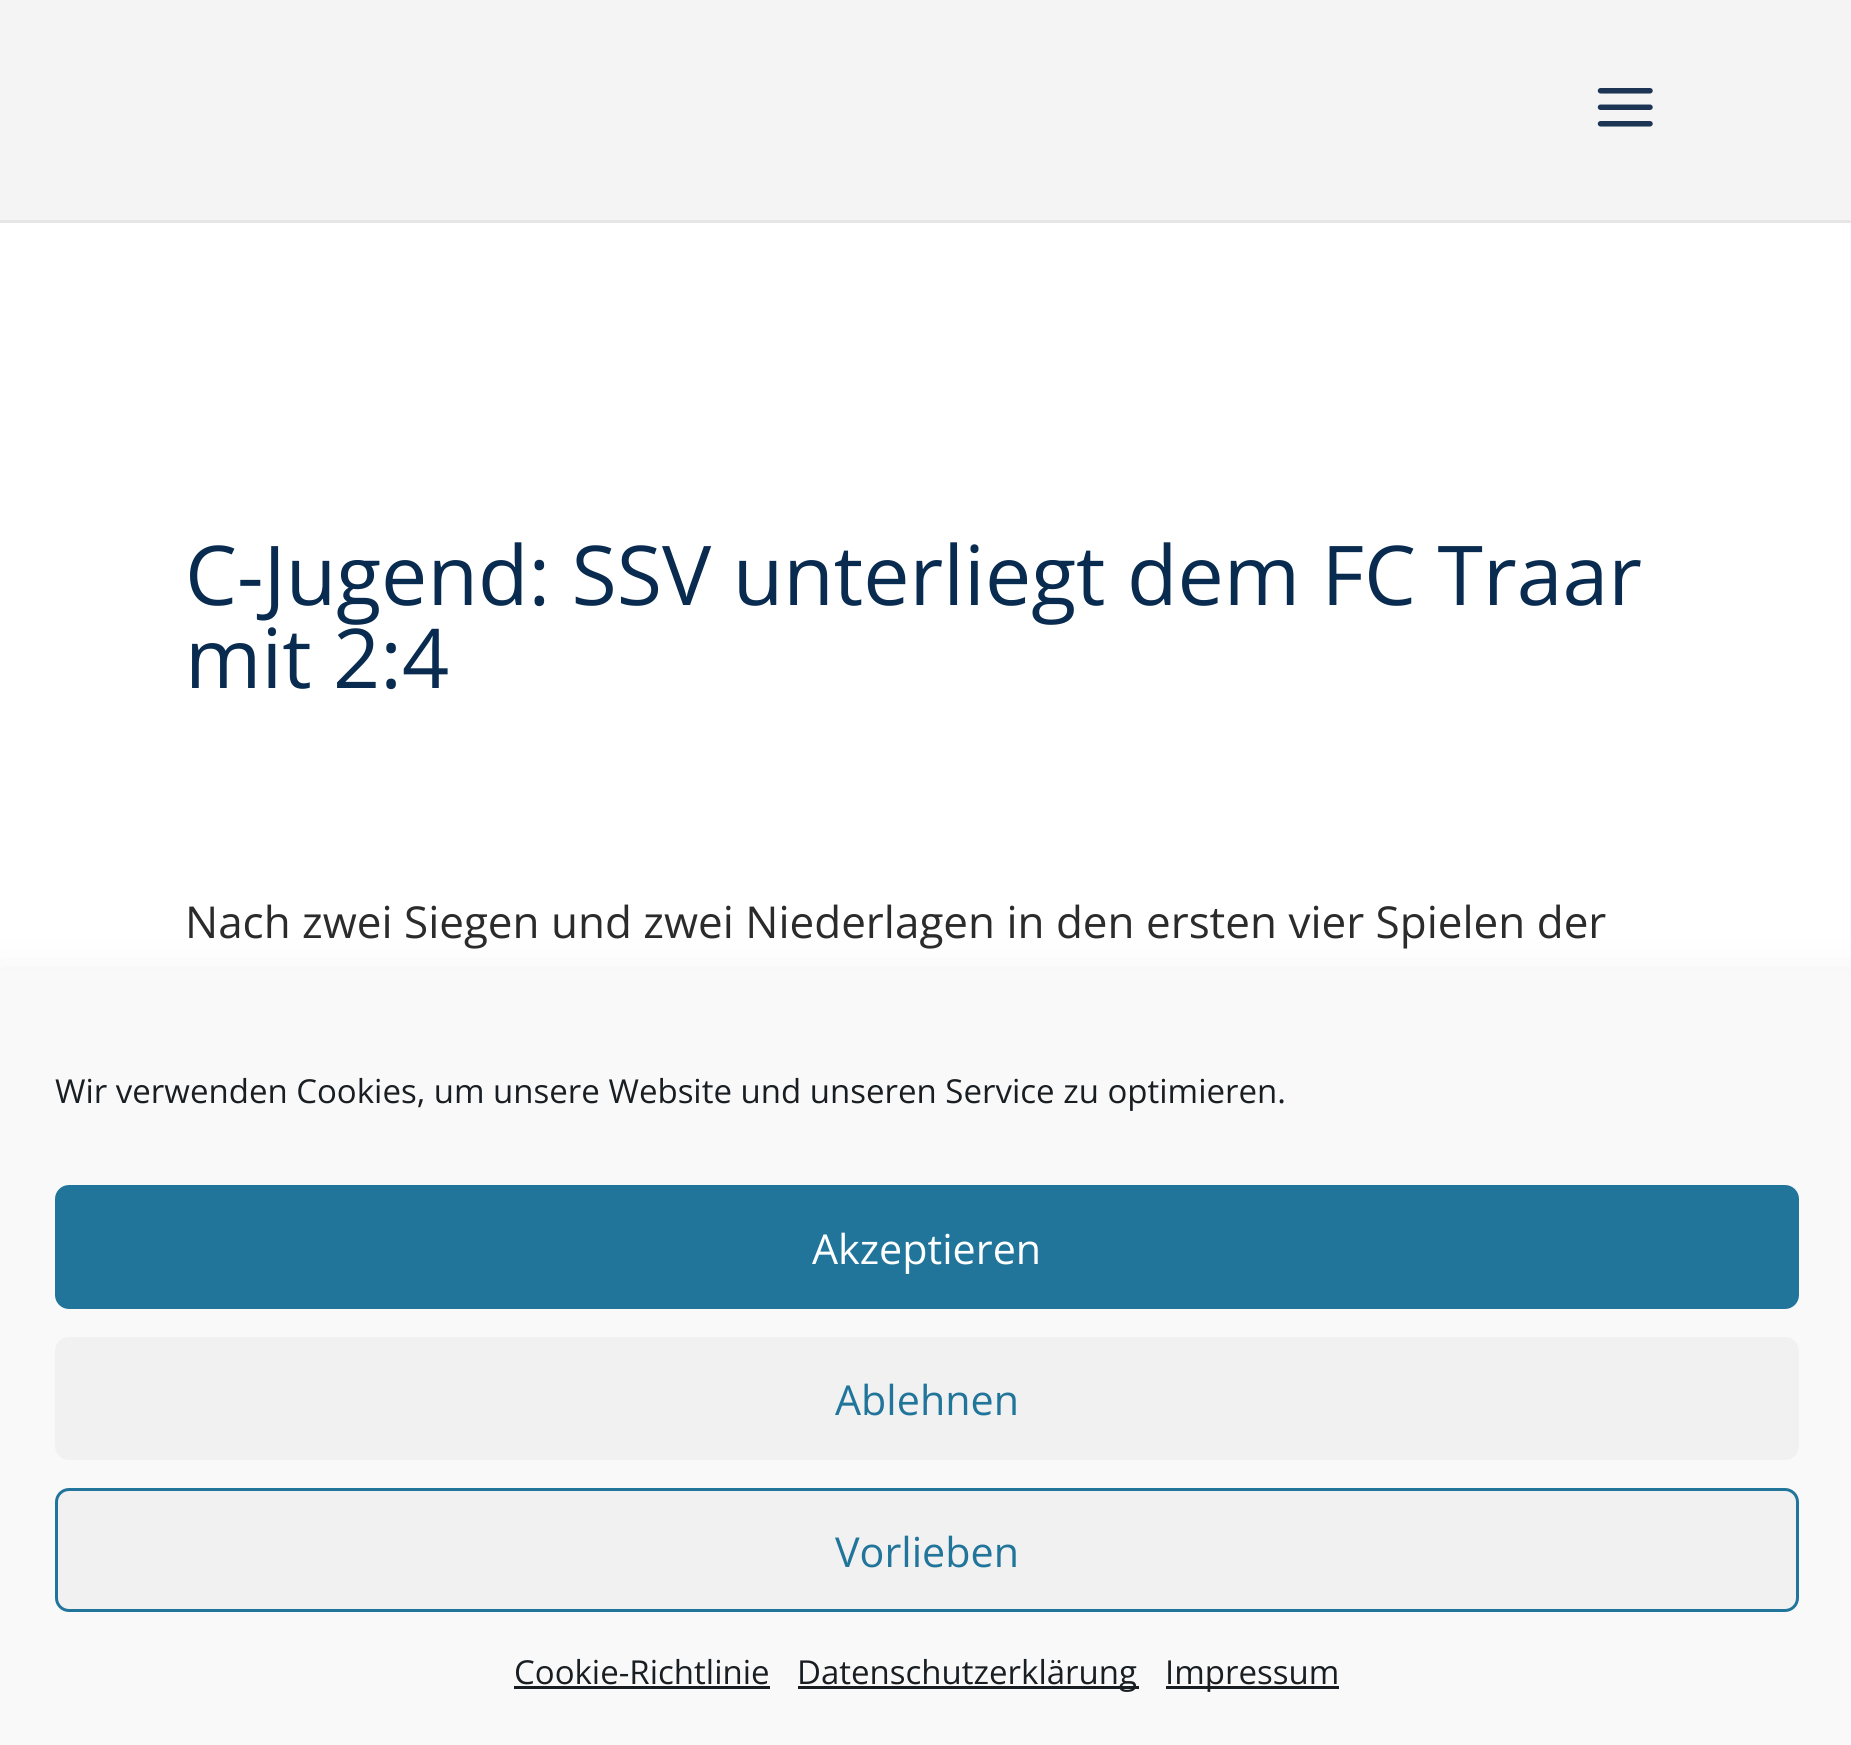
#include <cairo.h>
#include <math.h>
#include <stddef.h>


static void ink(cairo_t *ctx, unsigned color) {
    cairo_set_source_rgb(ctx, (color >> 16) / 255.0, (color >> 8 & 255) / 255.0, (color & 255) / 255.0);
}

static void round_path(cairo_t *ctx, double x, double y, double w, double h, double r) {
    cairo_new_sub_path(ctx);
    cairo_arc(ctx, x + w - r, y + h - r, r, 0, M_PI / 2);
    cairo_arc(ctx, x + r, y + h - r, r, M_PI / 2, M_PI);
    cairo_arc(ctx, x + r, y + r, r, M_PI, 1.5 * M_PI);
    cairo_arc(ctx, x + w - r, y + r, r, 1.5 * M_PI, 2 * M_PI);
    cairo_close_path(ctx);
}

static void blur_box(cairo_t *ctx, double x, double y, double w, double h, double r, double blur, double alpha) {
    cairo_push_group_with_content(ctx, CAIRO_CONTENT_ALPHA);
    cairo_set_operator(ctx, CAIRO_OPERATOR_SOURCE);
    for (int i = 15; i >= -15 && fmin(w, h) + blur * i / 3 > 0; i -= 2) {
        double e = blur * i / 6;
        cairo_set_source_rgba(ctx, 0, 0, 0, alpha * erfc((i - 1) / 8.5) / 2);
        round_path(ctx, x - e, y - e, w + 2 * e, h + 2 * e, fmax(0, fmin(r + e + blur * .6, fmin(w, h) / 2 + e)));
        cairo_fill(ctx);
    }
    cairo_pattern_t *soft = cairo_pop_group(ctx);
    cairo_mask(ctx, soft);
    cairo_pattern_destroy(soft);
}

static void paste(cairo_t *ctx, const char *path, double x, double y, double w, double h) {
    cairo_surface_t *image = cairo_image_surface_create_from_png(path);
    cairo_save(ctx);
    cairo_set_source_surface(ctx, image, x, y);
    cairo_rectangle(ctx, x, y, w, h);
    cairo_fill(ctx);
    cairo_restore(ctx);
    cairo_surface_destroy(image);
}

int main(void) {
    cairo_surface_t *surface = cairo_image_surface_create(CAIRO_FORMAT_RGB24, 1851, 1745);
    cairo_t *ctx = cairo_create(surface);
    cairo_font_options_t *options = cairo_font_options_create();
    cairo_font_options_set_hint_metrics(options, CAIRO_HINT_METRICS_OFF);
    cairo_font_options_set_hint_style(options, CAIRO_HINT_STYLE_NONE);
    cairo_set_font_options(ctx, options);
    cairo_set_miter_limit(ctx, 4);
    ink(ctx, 0xFFFFFF);
    cairo_paint(ctx);
    ink(ctx, 0xE6E6E6);
    cairo_new_path(ctx);
    cairo_move_to(ctx, 0, 220);
    cairo_line_to(ctx, 0, 223);
    cairo_line_to(ctx, 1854, 223);
    cairo_line_to(ctx, 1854, 3);
    cairo_line_to(ctx, 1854, 220);
    cairo_close_path(ctx);
    cairo_fill(ctx);
    ink(ctx, 0xF4F4F4);
    cairo_rectangle(ctx, 0, 0, 1851, 220);
    cairo_fill(ctx);
    paste(ctx, "media/1.png", 1597, 88, 56, 39);
    cairo_select_font_face(ctx, "Open Sans", CAIRO_FONT_SLANT_NORMAL, CAIRO_FONT_WEIGHT_NORMAL);
    cairo_set_font_size(ctx, 82.5);
    ink(ctx, 0x082B4F);
    cairo_move_to(ctx, 185, 605);
    cairo_show_text(ctx, "C-Jugend: SSV unterliegt dem FC Traar");
    cairo_move_to(ctx, 185, 688);
    cairo_show_text(ctx, "mit 2:4");
    cairo_set_font_size(ctx, 44);
    ink(ctx, 0x2B2B2B);
    cairo_move_to(ctx, 185, 938);
    cairo_show_text(ctx, "Nach zwei Siegen und zwei Niederlagen in den ersten vier Spielen der");
    ink(ctx, 0x000000);
    blur_box(ctx, 0, 998, 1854, 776, 0, 27.5, 0.19);
    ink(ctx, 0xF9F9F9);
    cairo_rectangle(ctx, 0, 973, 1851, 772);
    cairo_fill(ctx);
    cairo_set_font_size(ctx, 33);
    ink(ctx, 0x191E23);
    cairo_move_to(ctx, 55, 1103);
    cairo_show_text(ctx, "Wir verwenden Cookies, um unsere Website und unseren Service zu optimieren.");
    ink(ctx, 0x21759B);
    round_path(ctx, 56.5, 1186.5, 1741, 121, 12.5);
    cairo_fill_preserve(ctx);
    cairo_set_line_width(ctx, 3);
    cairo_stroke(ctx);
    cairo_set_font_size(ctx, 41.25);
    ink(ctx, 0xFFFFFF);
    cairo_move_to(ctx, 812, 1264);
    cairo_show_text(ctx, "Akzeptieren");
    ink(ctx, 0xF1F1F1);
    round_path(ctx, 55, 1337, 1744, 123, 14);
    cairo_fill(ctx);
    ink(ctx, 0x21759B);
    cairo_move_to(ctx, 835, 1415);
    cairo_show_text(ctx, "Ablehnen");
    ink(ctx, 0xF1F1F1);
    round_path(ctx, 56.5, 1489.5, 1741, 121, 12.5);
    cairo_fill_preserve(ctx);
    ink(ctx, 0x21759B);
    cairo_stroke(ctx);
    cairo_move_to(ctx, 835, 1567);
    cairo_show_text(ctx, "Vorlieben");
    cairo_set_font_size(ctx, 33);
    ink(ctx, 0x191E23);
    cairo_move_to(ctx, 514, 1684);
    cairo_show_text(ctx, "Cookie-Richtlinie");
    cairo_rectangle(ctx, 514, 1686, 256, 3);
    cairo_fill(ctx);
    cairo_rectangle(ctx, 798, 1686, 341, 3);
    cairo_fill(ctx);
    cairo_move_to(ctx, 797, 1684);
    cairo_show_text(ctx, "Datenschutzerklärung");
    cairo_rectangle(ctx, 1166, 1686, 173, 3);
    cairo_fill(ctx);
    cairo_move_to(ctx, 1165, 1684);
    cairo_show_text(ctx, "Impressum");
    cairo_surface_write_to_png(surface, "image.png");
    cairo_font_options_destroy(options);
    cairo_destroy(ctx);
    cairo_surface_destroy(surface);
    return 0;
}
